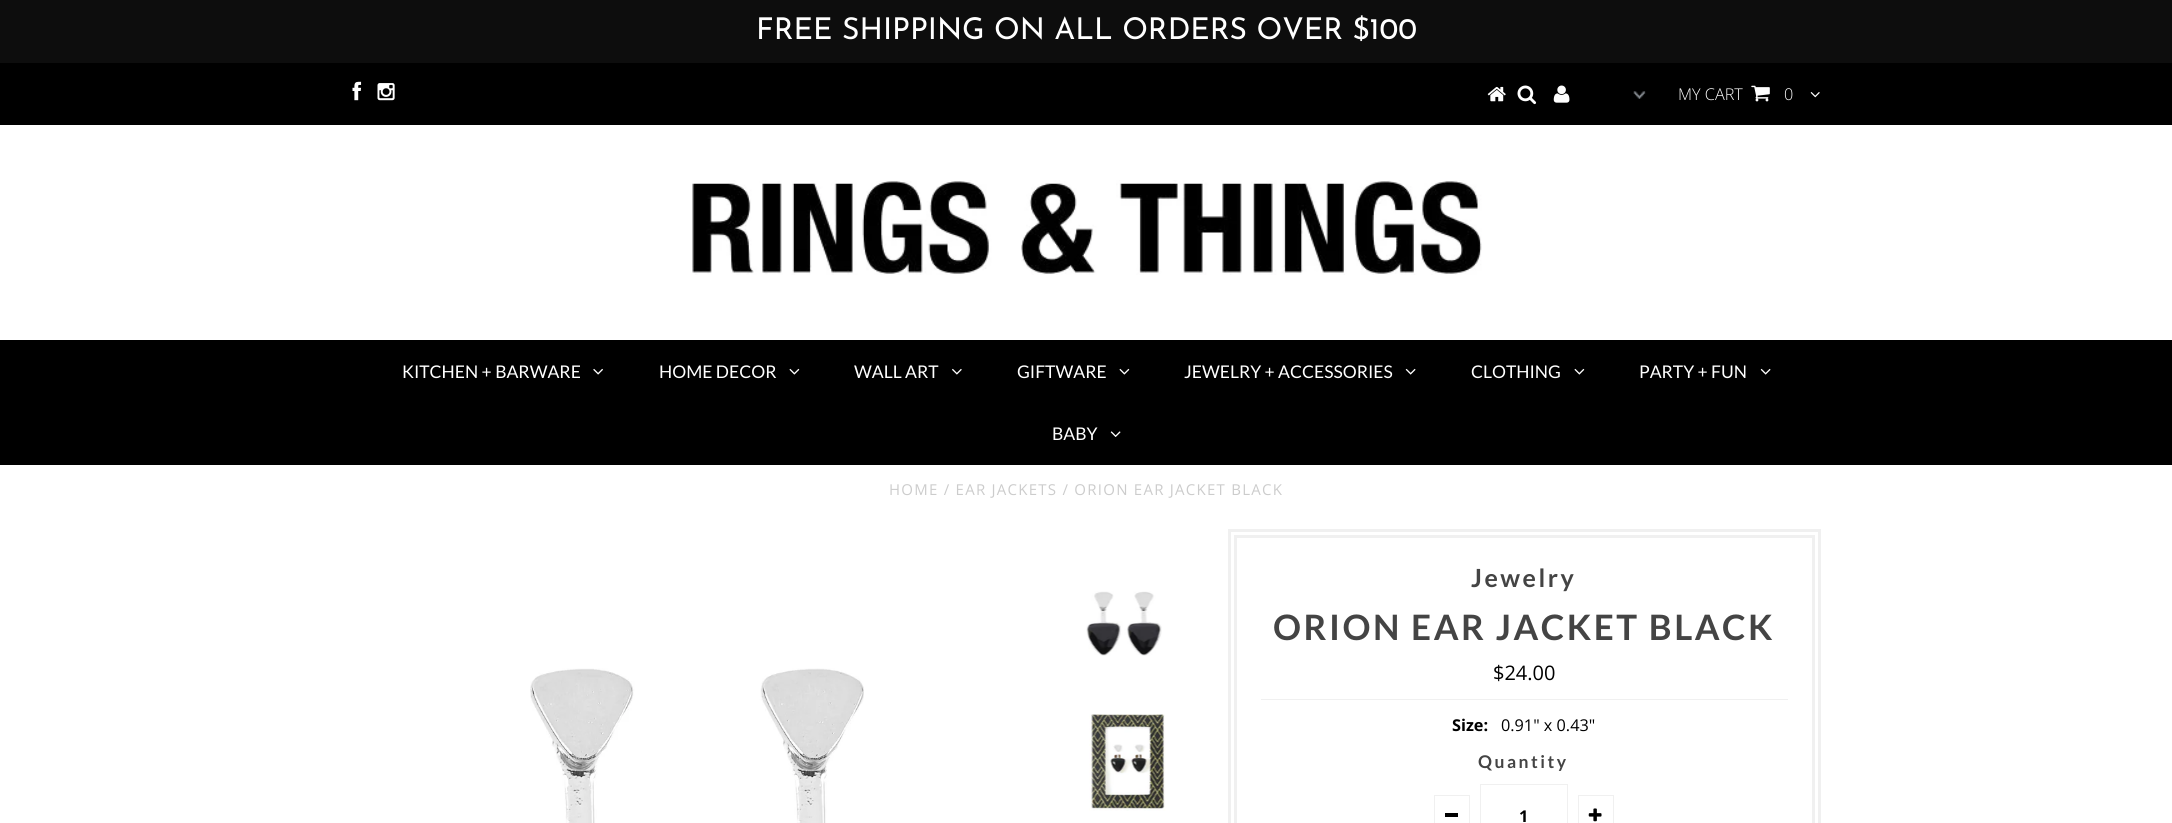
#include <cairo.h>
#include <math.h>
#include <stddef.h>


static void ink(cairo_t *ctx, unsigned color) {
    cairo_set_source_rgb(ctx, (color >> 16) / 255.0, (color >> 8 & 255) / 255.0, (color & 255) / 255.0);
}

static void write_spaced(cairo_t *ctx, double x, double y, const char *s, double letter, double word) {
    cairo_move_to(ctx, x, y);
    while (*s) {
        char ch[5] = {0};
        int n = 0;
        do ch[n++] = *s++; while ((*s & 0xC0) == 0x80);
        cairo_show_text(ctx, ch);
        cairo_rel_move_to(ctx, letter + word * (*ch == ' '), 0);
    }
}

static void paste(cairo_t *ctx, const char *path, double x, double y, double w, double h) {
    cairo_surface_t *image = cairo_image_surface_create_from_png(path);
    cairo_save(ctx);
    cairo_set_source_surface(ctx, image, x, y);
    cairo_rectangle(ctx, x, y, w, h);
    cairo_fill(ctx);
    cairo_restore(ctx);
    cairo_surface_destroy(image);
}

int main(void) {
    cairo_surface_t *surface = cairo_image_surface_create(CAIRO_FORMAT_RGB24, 2172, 823);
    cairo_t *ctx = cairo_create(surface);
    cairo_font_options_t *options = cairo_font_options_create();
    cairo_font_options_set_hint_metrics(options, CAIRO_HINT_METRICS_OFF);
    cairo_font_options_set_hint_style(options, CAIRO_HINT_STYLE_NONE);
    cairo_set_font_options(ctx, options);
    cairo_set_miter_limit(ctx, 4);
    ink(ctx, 0xFFFFFF);
    cairo_paint(ctx);
    ink(ctx, 0x0D0D0D);
    cairo_rectangle(ctx, 0, 0, 2172, 63);
    cairo_fill(ctx);
    cairo_select_font_face(ctx, "Josefin Sans Thin", CAIRO_FONT_SLANT_NORMAL, CAIRO_FONT_WEIGHT_NORMAL);
    cairo_set_font_size(ctx, 30);
    ink(ctx, 0xFFFFFF);
    cairo_move_to(ctx, 756, 39);
    cairo_show_text(ctx, "FREE SHIPPING ON ALL ORDERS OVER $100");
    ink(ctx, 0x000000);
    cairo_rectangle(ctx, 0, 63, 2172, 62);
    cairo_fill(ctx);
    paste(ctx, "media/1.png", 352, 81, 10, 20);
    paste(ctx, "media/2.png", 377, 83, 18, 18);
    paste(ctx, "media/3.png", 1487, 86, 19, 16);
    paste(ctx, "media/4.png", 1517, 85, 20, 20);
    paste(ctx, "media/5.png", 1553, 85, 17, 18);
    paste(ctx, "media/6.png", 1633, 91, 13, 8);
    cairo_select_font_face(ctx, "Open Sans Light", CAIRO_FONT_SLANT_NORMAL, CAIRO_FONT_WEIGHT_NORMAL);
    cairo_set_font_size(ctx, 16.25);
    ink(ctx, 0xFFFFFF);
    cairo_move_to(ctx, 1678, 100);
    cairo_show_text(ctx, "MY CART");
    paste(ctx, "media/7.png", 1751, 85, 19, 17);
    cairo_move_to(ctx, 1784, 100);
    cairo_show_text(ctx, "0");
    paste(ctx, "media/8.png", 1810, 92, 10, 6);
    paste(ctx, "media/9.png", 692, 180, 790, 95);
    ink(ctx, 0x000000);
    cairo_rectangle(ctx, 0, 340, 2172, 125);
    cairo_fill(ctx);
    cairo_select_font_face(ctx, "Lato", CAIRO_FONT_SLANT_NORMAL, CAIRO_FONT_WEIGHT_NORMAL);
    cairo_set_font_size(ctx, 17.5);
    ink(ctx, 0xFFFFFF);
    cairo_move_to(ctx, 402, 378);
    cairo_show_text(ctx, "KITCHEN + BARWARE");
    paste(ctx, "media/10.png", 593, 368, 10, 7);
    cairo_move_to(ctx, 659, 378);
    cairo_show_text(ctx, "HOME DECOR");
    paste(ctx, "media/11.png", 789, 368, 11, 7);
    cairo_move_to(ctx, 854, 378);
    cairo_show_text(ctx, "WALL ART");
    paste(ctx, "media/12.png", 952, 368, 10, 7);
    cairo_move_to(ctx, 1017, 378);
    cairo_show_text(ctx, "GIFTWARE");
    paste(ctx, "media/11.png", 1119, 368, 11, 7);
    cairo_move_to(ctx, 1184, 378);
    cairo_show_text(ctx, "JEWELRY + ACCESSORIES");
    paste(ctx, "media/13.png", 1405, 368, 11, 7);
    cairo_move_to(ctx, 1471, 378);
    cairo_show_text(ctx, "CLOTHING");
    paste(ctx, "media/11.png", 1574, 368, 11, 7);
    cairo_move_to(ctx, 1639, 378);
    cairo_show_text(ctx, "PARTY + FUN");
    paste(ctx, "media/13.png", 1760, 368, 11, 7);
    cairo_move_to(ctx, 1052, 440);
    cairo_show_text(ctx, "BABY");
    paste(ctx, "media/14.png", 1110, 431, 11, 6);
    cairo_select_font_face(ctx, "Open Sans", CAIRO_FONT_SLANT_NORMAL, CAIRO_FONT_WEIGHT_NORMAL);
    cairo_set_font_size(ctx, 15);
    ink(ctx, 0xCCCCCC);
    write_spaced(ctx, 889, 495, "HOME / EAR JACKETS / ORION EAR JACKET BLACK", 1.25, 0);
    paste(ctx, "media/15.png", 530, 668, 334, 155);
    paste(ctx, "media/16.png", 1086, 591, 76, 65);
    paste(ctx, "media/17.png", 1089, 714, 77, 97);
    cairo_rectangle(ctx, 1229.5, 530.5, 590, 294);
    ink(ctx, 0xF0F0F0);
    cairo_set_line_width(ctx, 3);
    cairo_stroke(ctx);
    cairo_rectangle(ctx, 1235.5, 536.5, 578, 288);
    cairo_stroke(ctx);
    cairo_select_font_face(ctx, "Lato", CAIRO_FONT_SLANT_NORMAL, CAIRO_FONT_WEIGHT_BOLD);
    cairo_set_font_size(ctx, 25);
    ink(ctx, 0x444444);
    write_spaced(ctx, 1471, 587, "Jewelry", 2.5, 0);
    cairo_set_font_size(ctx, 35);
    write_spaced(ctx, 1273, 640, "ORION EAR JACKET BLACK", 2.5, 0);
    cairo_select_font_face(ctx, "Open Sans", CAIRO_FONT_SLANT_NORMAL, CAIRO_FONT_WEIGHT_NORMAL);
    cairo_set_font_size(ctx, 20);
    ink(ctx, 0x000000);
    cairo_move_to(ctx, 1493, 680);
    cairo_show_text(ctx, "$24.00");
    ink(ctx, 0xF0F0F0);
    cairo_rectangle(ctx, 1261, 699, 527, 1);
    cairo_fill(ctx);
    cairo_select_font_face(ctx, "Open Sans", CAIRO_FONT_SLANT_NORMAL, CAIRO_FONT_WEIGHT_BOLD);
    cairo_set_font_size(ctx, 16.25);
    ink(ctx, 0x000000);
    cairo_move_to(ctx, 1452, 731);
    cairo_show_text(ctx, "Size:");
    cairo_select_font_face(ctx, "Open Sans", CAIRO_FONT_SLANT_NORMAL, CAIRO_FONT_WEIGHT_NORMAL);
    cairo_move_to(ctx, 1501, 731);
    cairo_show_text(ctx, "0.91\" x 0.43\"");
    cairo_select_font_face(ctx, "Lato", CAIRO_FONT_SLANT_NORMAL, CAIRO_FONT_WEIGHT_BOLD);
    cairo_set_font_size(ctx, 17.5);
    ink(ctx, 0x444444);
    write_spaced(ctx, 1478, 768, "Quantity", 2.5, 0);
    cairo_rectangle(ctx, 1434.5, 795.5, 35, 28);
    ink(ctx, 0xF0F0F0);
    cairo_set_line_width(ctx, 1);
    cairo_stroke(ctx);
    ink(ctx, 0x000000);
    cairo_rectangle(ctx, 1445, 813, 13, 4);
    cairo_fill(ctx);
    cairo_rectangle(ctx, 1480.5, 784.5, 87, 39);
    ink(ctx, 0xF0F0F0);
    cairo_stroke(ctx);
    cairo_select_font_face(ctx, "Open Sans", CAIRO_FONT_SLANT_NORMAL, CAIRO_FONT_WEIGHT_BOLD);
    cairo_set_font_size(ctx, 16.25);
    ink(ctx, 0x000000);
    cairo_move_to(ctx, 1519, 822);
    cairo_show_text(ctx, "1");
    cairo_rectangle(ctx, 1578.5, 795.5, 35, 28);
    ink(ctx, 0xF0F0F0);
    cairo_stroke(ctx);
    paste(ctx, "media/18.png", 1588, 808, 14, 14);
    cairo_surface_write_to_png(surface, "image.png");
    cairo_font_options_destroy(options);
    cairo_destroy(ctx);
    cairo_surface_destroy(surface);
    return 0;
}
